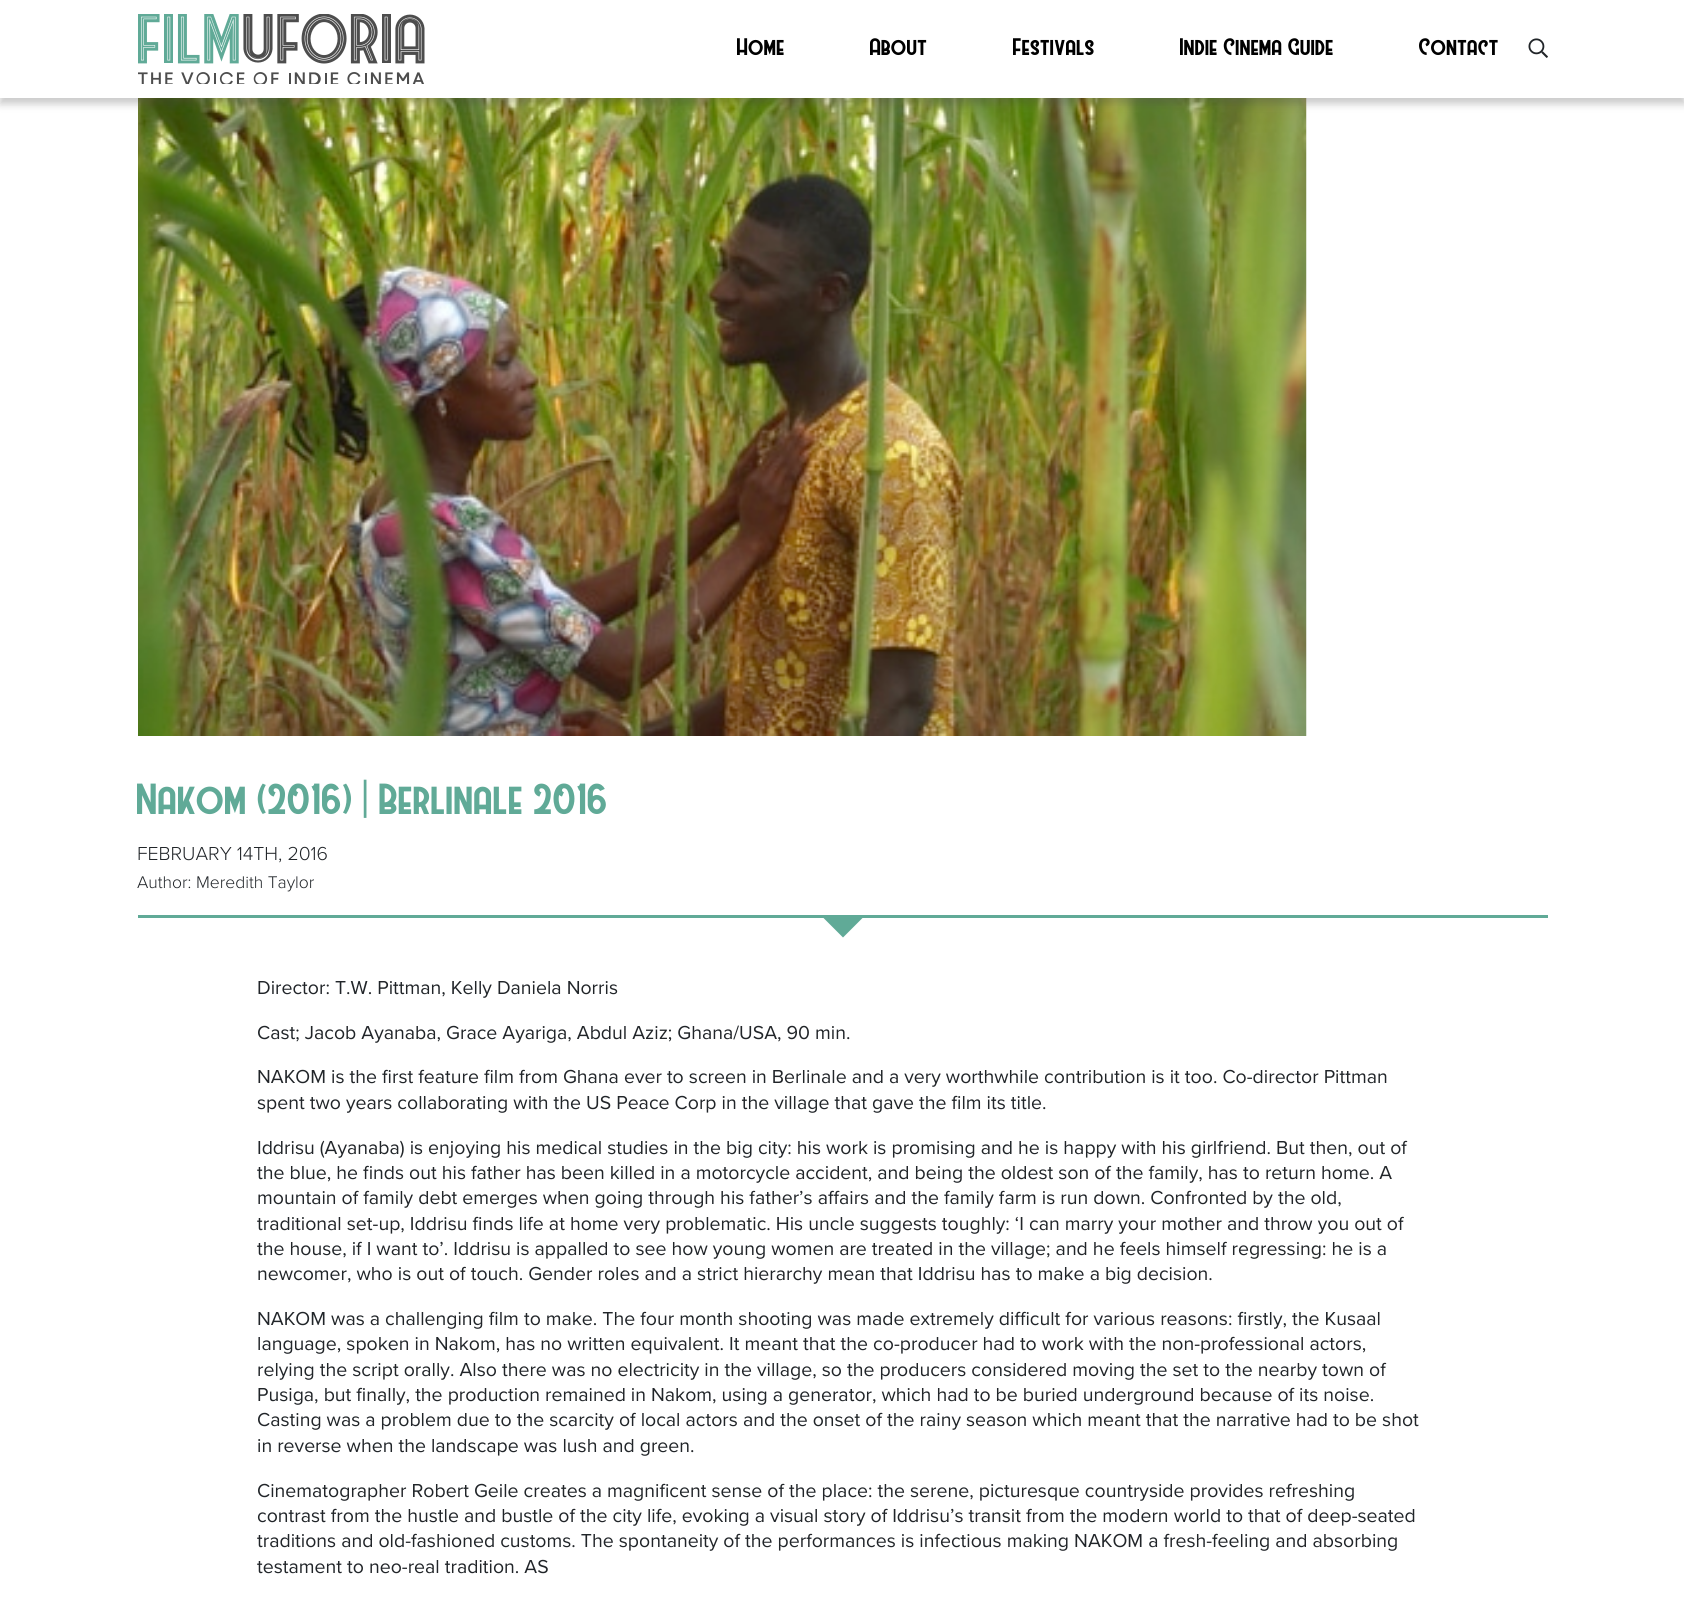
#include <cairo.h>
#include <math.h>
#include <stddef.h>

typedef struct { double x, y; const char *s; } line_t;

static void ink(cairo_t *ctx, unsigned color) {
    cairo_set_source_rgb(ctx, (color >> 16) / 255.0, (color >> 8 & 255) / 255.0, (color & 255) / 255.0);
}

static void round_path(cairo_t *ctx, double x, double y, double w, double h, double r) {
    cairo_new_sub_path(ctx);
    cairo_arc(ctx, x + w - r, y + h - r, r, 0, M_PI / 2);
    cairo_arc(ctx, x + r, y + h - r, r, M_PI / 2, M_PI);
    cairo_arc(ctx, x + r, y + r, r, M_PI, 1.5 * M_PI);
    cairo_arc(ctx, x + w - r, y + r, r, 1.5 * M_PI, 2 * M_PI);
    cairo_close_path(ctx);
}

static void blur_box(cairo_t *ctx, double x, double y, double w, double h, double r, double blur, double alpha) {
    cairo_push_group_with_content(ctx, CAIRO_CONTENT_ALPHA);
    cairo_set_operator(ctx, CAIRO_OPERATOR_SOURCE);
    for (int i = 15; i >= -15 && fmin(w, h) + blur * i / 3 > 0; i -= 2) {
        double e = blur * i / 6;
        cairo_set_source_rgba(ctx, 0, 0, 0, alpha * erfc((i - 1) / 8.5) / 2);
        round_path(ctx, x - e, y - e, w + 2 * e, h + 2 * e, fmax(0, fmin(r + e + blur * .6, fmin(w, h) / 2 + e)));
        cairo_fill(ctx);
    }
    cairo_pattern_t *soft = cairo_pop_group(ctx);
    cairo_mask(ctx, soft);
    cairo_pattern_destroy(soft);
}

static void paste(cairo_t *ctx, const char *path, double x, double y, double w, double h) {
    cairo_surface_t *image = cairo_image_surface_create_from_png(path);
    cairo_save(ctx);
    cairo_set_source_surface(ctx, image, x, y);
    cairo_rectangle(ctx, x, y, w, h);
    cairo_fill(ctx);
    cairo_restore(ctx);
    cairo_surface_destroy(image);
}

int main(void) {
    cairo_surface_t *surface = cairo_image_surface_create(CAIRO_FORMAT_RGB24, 1684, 1601);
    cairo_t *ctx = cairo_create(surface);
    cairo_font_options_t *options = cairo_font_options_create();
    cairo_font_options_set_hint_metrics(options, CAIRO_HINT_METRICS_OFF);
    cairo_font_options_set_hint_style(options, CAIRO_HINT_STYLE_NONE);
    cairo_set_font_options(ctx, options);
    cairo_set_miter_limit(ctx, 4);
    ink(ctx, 0xFFFFFF);
    cairo_paint(ctx);
    paste(ctx, "media/3.png", 138, 98, 1169, 638);
    ink(ctx, 0x4D4D4D);
    blur_box(ctx, 0, 6, 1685, 98, 0, 4, 0.3);
    ink(ctx, 0xFFFFFF);
    cairo_rectangle(ctx, 0, 0, 1684, 98);
    cairo_fill(ctx);
    paste(ctx, "media/1.png", 138, 14, 287, 70);
    cairo_select_font_face(ctx, "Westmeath", CAIRO_FONT_SLANT_NORMAL, CAIRO_FONT_WEIGHT_NORMAL);
    cairo_set_font_size(ctx, 21.5);
    ink(ctx, 0x000000);
    {
        static const line_t items[] = {
            {737, 55, "Home"},
            {870, 55, "About"},
            {1013, 55, "Festivals"},
            {1180, 55, "Indie Cinema Guide"},
            {1419, 55, "Contact"},
        };
        for (size_t i = 0; i < sizeof items / sizeof *items; i++) {
            cairo_move_to(ctx, items[i].x, items[i].y);
            cairo_show_text(ctx, items[i].s);
        }
    }
    paste(ctx, "media/2.png", 1528, 38, 20, 20);
    cairo_set_font_size(ctx, 39);
    ink(ctx, 0x60AA97);
    cairo_move_to(ctx, 137, 814);
    cairo_show_text(ctx, "Nakom (2016) | Berlinale 2016");
    cairo_select_font_face(ctx, "Proxima Nova Light", CAIRO_FONT_SLANT_NORMAL, CAIRO_FONT_WEIGHT_NORMAL);
    cairo_set_font_size(ctx, 19.5);
    ink(ctx, 0x212529);
    cairo_move_to(ctx, 137, 860);
    cairo_show_text(ctx, "FEBRUARY 14TH, 2016");
    cairo_set_font_size(ctx, 17.5);
    cairo_move_to(ctx, 137, 888);
    cairo_show_text(ctx, "Author: Meredith Taylor");
    ink(ctx, 0x60AA97);
    cairo_rectangle(ctx, 138, 915, 1410, 3);
    cairo_fill(ctx);
    cairo_new_path(ctx);
    cairo_move_to(ctx, 823.5, 918);
    cairo_line_to(ctx, 862.5, 918);
    cairo_line_to(ctx, 843, 937.5);
    cairo_close_path(ctx);
    cairo_fill(ctx);
    cairo_select_font_face(ctx, "Proxima Nova", CAIRO_FONT_SLANT_NORMAL, CAIRO_FONT_WEIGHT_NORMAL);
    cairo_set_font_size(ctx, 19.5);
    ink(ctx, 0x212529);
    {
        static const line_t items[] = {
            {257, 994, "Director: T.W. Pittman, Kelly Daniela Norris"},
            {257, 1039, "Cast; Jacob Ayanaba, Grace Ayariga, Abdul Aziz; Ghana/USA, 90 min."},
            {257, 1083, "NAKOM is the first feature film from Ghana ever to screen in Berlinale and a very worthwhile contribution is it too. Co-director Pittman"},
            {257, 1109, "spent two years collaborating with the US Peace Corp in the village that gave the film its title."},
            {257, 1154, "Iddrisu (Ayanaba) is enjoying his medical studies in the big city: his work is promising and he is happy with his girlfriend. But then, out of"},
            {257, 1179, "the blue, he finds out his father has been killed in a motorcycle accident, and being the oldest son of the family, has to return home. A"},
            {257, 1204, "mountain of family debt emerges when going through his father’s affairs and the family farm is run down. Confronted by the old,"},
            {257, 1230, "traditional set-up, Iddrisu finds life at home very problematic. His uncle suggests toughly: ‘I can marry your mother and throw you out of"},
            {257, 1255, "the house, if I want to’. Iddrisu is appalled to see how young women are treated in the village; and he feels himself regressing: he is a"},
            {257, 1280, "newcomer, who is out of touch. Gender roles and a strict hierarchy mean that Iddrisu has to make a big decision."},
            {257, 1325, "NAKOM was a challenging film to make. The four month shooting was made extremely difficult for various reasons: firstly, the Kusaal"},
            {257, 1350, "language, spoken in Nakom, has no written equivalent. It meant that the co-producer had to work with the non-professional actors,"},
            {257, 1376, "relying the script orally. Also there was no electricity in the village, so the producers considered moving the set to the nearby town of"},
            {257, 1401, "Pusiga, but finally, the production remained in Nakom, using a generator, which had to be buried underground because of its noise."},
            {257, 1426, "Casting was a problem due to the scarcity of local actors and the onset of the rainy season which meant that the narrative had to be shot"},
            {257, 1452, "in reverse when the landscape was lush and green."},
            {257, 1497, "Cinematographer Robert Geile creates a magnificent sense of the place: the serene, picturesque countryside provides refreshing"},
            {257, 1522, "contrast from the hustle and bustle of the city life, evoking a visual story of Iddrisu’s transit from the modern world to that of deep-seated"},
            {257, 1547, "traditions and old-fashioned customs. The spontaneity of the performances is infectious making NAKOM a fresh-feeling and absorbing"},
            {257, 1573, "testament to neo-real tradition. AS"},
        };
        for (size_t i = 0; i < sizeof items / sizeof *items; i++) {
            cairo_move_to(ctx, items[i].x, items[i].y);
            cairo_show_text(ctx, items[i].s);
        }
    }
    cairo_surface_write_to_png(surface, "image.png");
    cairo_font_options_destroy(options);
    cairo_destroy(ctx);
    cairo_surface_destroy(surface);
    return 0;
}
